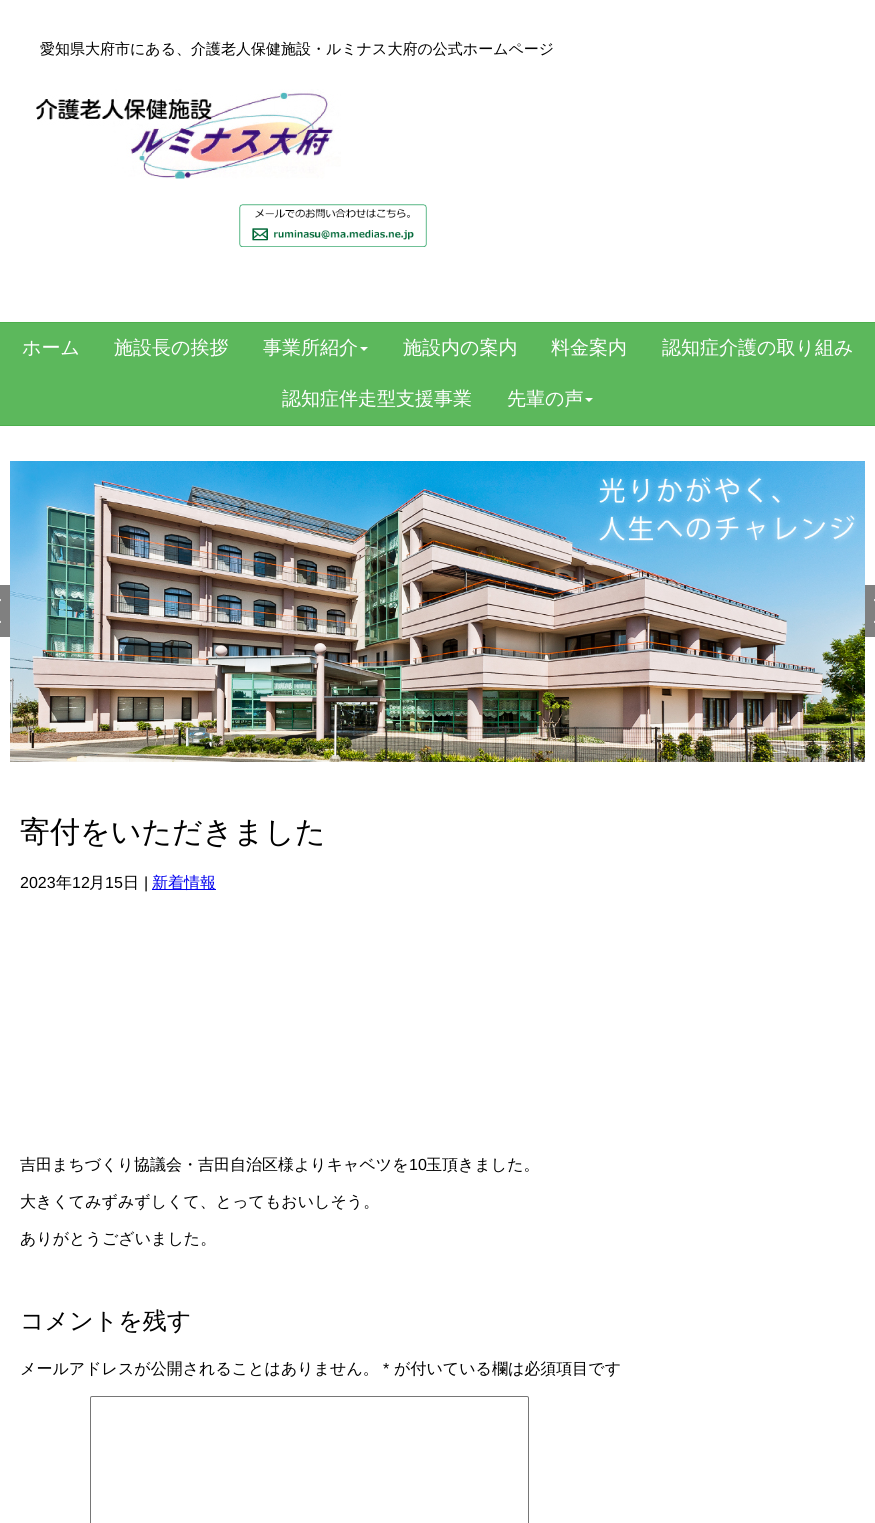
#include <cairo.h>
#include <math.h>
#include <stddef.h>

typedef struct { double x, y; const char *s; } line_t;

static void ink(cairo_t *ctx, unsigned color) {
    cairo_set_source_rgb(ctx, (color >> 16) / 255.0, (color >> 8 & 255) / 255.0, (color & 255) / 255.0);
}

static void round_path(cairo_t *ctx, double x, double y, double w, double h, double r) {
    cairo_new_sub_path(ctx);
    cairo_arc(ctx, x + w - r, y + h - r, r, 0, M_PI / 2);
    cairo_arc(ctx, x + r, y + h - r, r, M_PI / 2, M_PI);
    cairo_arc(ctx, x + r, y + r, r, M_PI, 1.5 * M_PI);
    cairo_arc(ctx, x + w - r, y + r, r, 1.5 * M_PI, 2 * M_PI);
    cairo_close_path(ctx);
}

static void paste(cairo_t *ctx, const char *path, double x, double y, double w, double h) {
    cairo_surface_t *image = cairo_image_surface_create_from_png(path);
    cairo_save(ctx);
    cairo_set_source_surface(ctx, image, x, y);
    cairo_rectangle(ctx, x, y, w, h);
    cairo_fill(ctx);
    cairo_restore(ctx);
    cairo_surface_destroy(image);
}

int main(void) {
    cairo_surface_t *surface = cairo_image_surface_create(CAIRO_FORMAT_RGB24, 875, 1523);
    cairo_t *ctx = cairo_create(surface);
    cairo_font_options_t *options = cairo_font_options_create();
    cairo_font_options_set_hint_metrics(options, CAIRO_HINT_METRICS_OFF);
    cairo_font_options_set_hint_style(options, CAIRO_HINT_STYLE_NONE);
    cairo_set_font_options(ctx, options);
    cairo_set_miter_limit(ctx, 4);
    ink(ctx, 0xFFFFFF);
    cairo_paint(ctx);
    cairo_select_font_face(ctx, "WenQuanYi Zen Hei Medium", CAIRO_FONT_SLANT_NORMAL, CAIRO_FONT_WEIGHT_NORMAL);
    cairo_set_font_size(ctx, 15);
    ink(ctx, 0x000000);
    cairo_move_to(ctx, 40, 54);
    cairo_show_text(ctx, "愛知県大府市にある、介護老人保健施設・ルミナス大府の公式ホームページ");
    paste(ctx, "media/1.png", 36, 89, 305, 90);
    paste(ctx, "media/2.png", 239, 204, 188, 43);
    ink(ctx, 0x5CB85C);
    cairo_rectangle(ctx, -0.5, 322.5, 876, 103);
    cairo_fill_preserve(ctx);
    ink(ctx, 0x4CAE4C);
    cairo_set_line_width(ctx, 1);
    cairo_stroke(ctx);
    cairo_set_font_size(ctx, 19);
    ink(ctx, 0xFFFFFF);
    {
        static const line_t items[] = {
            {22, 354, "ホーム"},
            {114, 354, "施設長の挨拶"},
            {263, 354, "事業所紹介"},
        };
        for (size_t i = 0; i < sizeof items / sizeof *items; i++) {
            cairo_move_to(ctx, items[i].x, items[i].y);
            cairo_show_text(ctx, items[i].s);
        }
    }
    cairo_new_path(ctx);
    cairo_move_to(ctx, 360, 347);
    cairo_line_to(ctx, 368, 347);
    cairo_line_to(ctx, 364, 351);
    cairo_close_path(ctx);
    cairo_fill(ctx);
    {
        static const line_t items[] = {
            {403, 354, "施設内の案内"},
            {551, 354, "料金案内"},
            {662, 354, "認知症介護の取り組み"},
            {282, 405, "認知症伴走型支援事業"},
            {507, 405, "先輩の声"},
        };
        for (size_t i = 0; i < sizeof items / sizeof *items; i++) {
            cairo_move_to(ctx, items[i].x, items[i].y);
            cairo_show_text(ctx, items[i].s);
        }
    }
    cairo_new_path(ctx);
    cairo_move_to(ctx, 585, 398);
    cairo_line_to(ctx, 593, 398);
    cairo_line_to(ctx, 589, 402);
    cairo_close_path(ctx);
    cairo_fill(ctx);
    ink(ctx, 0x808080);
    cairo_rectangle(ctx, 0, 585, 10, 52);
    cairo_fill(ctx);
    paste(ctx, "media/3.png", 0, 599, 1, 24);
    paste(ctx, "media/4.png", 10, 461, 855, 301);
    cairo_rectangle(ctx, 865, 585, 10, 52);
    cairo_fill(ctx);
    paste(ctx, "media/5.png", 874, 599, 1, 24);
    cairo_set_font_size(ctx, 30);
    ink(ctx, 0x000000);
    cairo_move_to(ctx, 20, 842);
    cairo_show_text(ctx, "寄付をいただきました");
    cairo_select_font_face(ctx, "Liberation Sans", CAIRO_FONT_SLANT_NORMAL, CAIRO_FONT_WEIGHT_NORMAL);
    cairo_set_font_size(ctx, 16);
    cairo_move_to(ctx, 20, 888);
    cairo_show_text(ctx, "2023");
    cairo_select_font_face(ctx, "WenQuanYi Zen Hei Medium", CAIRO_FONT_SLANT_NORMAL, CAIRO_FONT_WEIGHT_NORMAL);
    cairo_move_to(ctx, 56, 888);
    cairo_show_text(ctx, "年");
    cairo_select_font_face(ctx, "Liberation Sans", CAIRO_FONT_SLANT_NORMAL, CAIRO_FONT_WEIGHT_NORMAL);
    cairo_move_to(ctx, 72, 888);
    cairo_show_text(ctx, "12");
    cairo_select_font_face(ctx, "WenQuanYi Zen Hei Medium", CAIRO_FONT_SLANT_NORMAL, CAIRO_FONT_WEIGHT_NORMAL);
    cairo_move_to(ctx, 89, 888);
    cairo_show_text(ctx, "月");
    cairo_select_font_face(ctx, "Liberation Sans", CAIRO_FONT_SLANT_NORMAL, CAIRO_FONT_WEIGHT_NORMAL);
    cairo_move_to(ctx, 105, 888);
    cairo_show_text(ctx, "15");
    cairo_select_font_face(ctx, "WenQuanYi Zen Hei Medium", CAIRO_FONT_SLANT_NORMAL, CAIRO_FONT_WEIGHT_NORMAL);
    cairo_move_to(ctx, 123, 888);
    cairo_show_text(ctx, "日");
    cairo_select_font_face(ctx, "Liberation Sans", CAIRO_FONT_SLANT_NORMAL, CAIRO_FONT_WEIGHT_NORMAL);
    cairo_move_to(ctx, 144, 888);
    cairo_show_text(ctx, "|");
    ink(ctx, 0x0000EE);
    cairo_rectangle(ctx, 152, 889, 64, 1);
    cairo_fill(ctx);
    cairo_select_font_face(ctx, "WenQuanYi Zen Hei Medium", CAIRO_FONT_SLANT_NORMAL, CAIRO_FONT_WEIGHT_NORMAL);
    cairo_move_to(ctx, 152, 888);
    cairo_show_text(ctx, "新着情報");
    ink(ctx, 0x000000);
    cairo_move_to(ctx, 20, 1170);
    cairo_show_text(ctx, "吉田まちづくり協議会・吉田自治区様よりキャベツを");
    cairo_select_font_face(ctx, "Liberation Sans", CAIRO_FONT_SLANT_NORMAL, CAIRO_FONT_WEIGHT_NORMAL);
    cairo_move_to(ctx, 409, 1170);
    cairo_show_text(ctx, "10");
    cairo_select_font_face(ctx, "WenQuanYi Zen Hei Medium", CAIRO_FONT_SLANT_NORMAL, CAIRO_FONT_WEIGHT_NORMAL);
    {
        static const line_t items[] = {
            {426, 1170, "玉頂きました。"},
            {20, 1207, "大きくてみずみずしくて、とってもおいしそう。"},
            {20, 1244, "ありがとうございました。"},
        };
        for (size_t i = 0; i < sizeof items / sizeof *items; i++) {
            cairo_move_to(ctx, items[i].x, items[i].y);
            cairo_show_text(ctx, items[i].s);
        }
    }
    cairo_set_font_size(ctx, 24);
    cairo_move_to(ctx, 20, 1329);
    cairo_show_text(ctx, "コメントを残す");
    cairo_set_font_size(ctx, 16);
    cairo_move_to(ctx, 20, 1374);
    cairo_show_text(ctx, "メールアドレスが公開されることはありません。");
    cairo_select_font_face(ctx, "Liberation Sans", CAIRO_FONT_SLANT_NORMAL, CAIRO_FONT_WEIGHT_NORMAL);
    cairo_move_to(ctx, 383, 1374);
    cairo_show_text(ctx, "*");
    cairo_select_font_face(ctx, "WenQuanYi Zen Hei Medium", CAIRO_FONT_SLANT_NORMAL, CAIRO_FONT_WEIGHT_NORMAL);
    cairo_move_to(ctx, 394, 1374);
    cairo_show_text(ctx, "が付いている欄は必須項目です");
    round_path(ctx, 90.5, 1396.5, 438, 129, 1.5);
    ink(ctx, 0x767676);
    cairo_stroke(ctx);
    cairo_surface_write_to_png(surface, "image.png");
    cairo_font_options_destroy(options);
    cairo_destroy(ctx);
    cairo_surface_destroy(surface);
    return 0;
}
